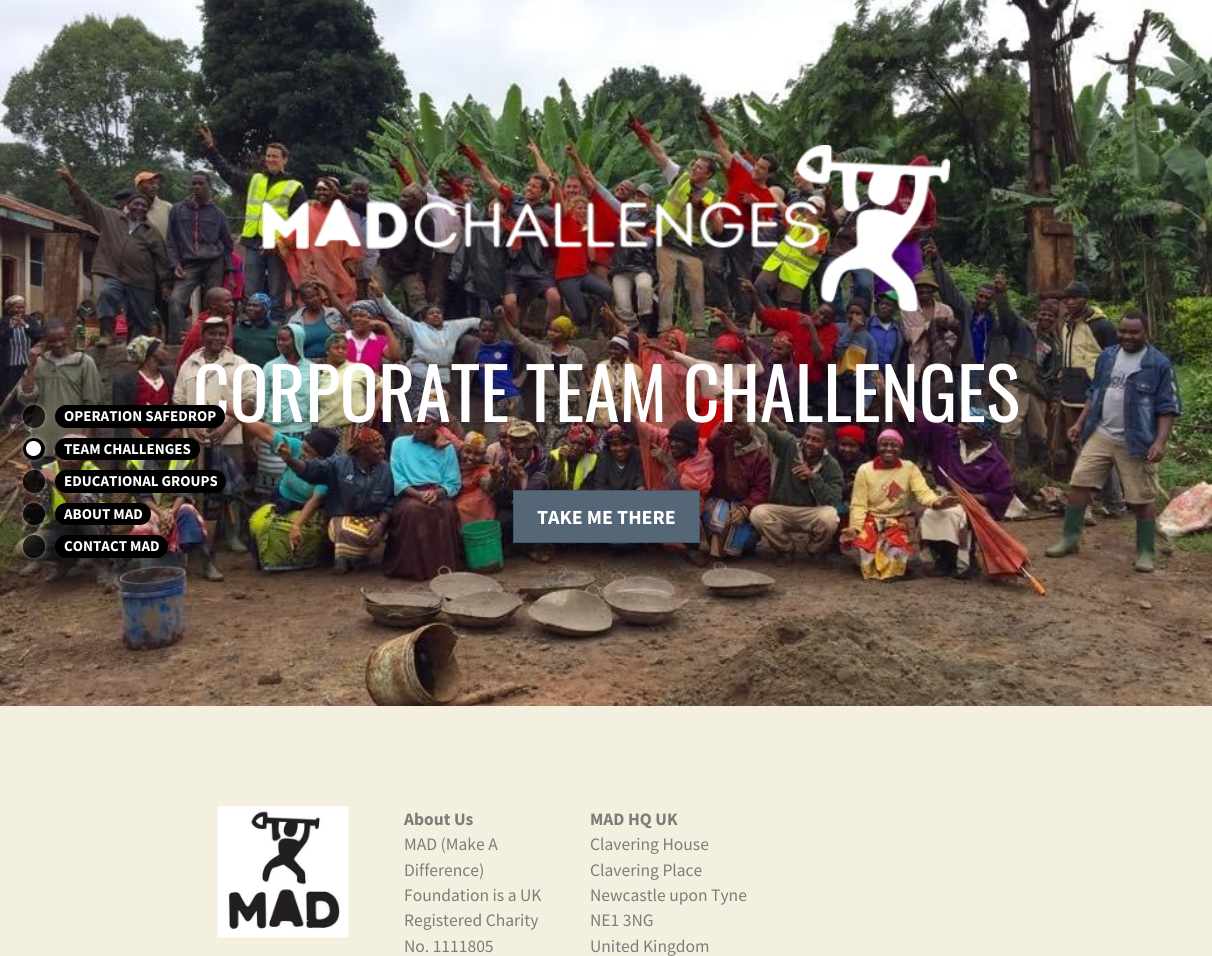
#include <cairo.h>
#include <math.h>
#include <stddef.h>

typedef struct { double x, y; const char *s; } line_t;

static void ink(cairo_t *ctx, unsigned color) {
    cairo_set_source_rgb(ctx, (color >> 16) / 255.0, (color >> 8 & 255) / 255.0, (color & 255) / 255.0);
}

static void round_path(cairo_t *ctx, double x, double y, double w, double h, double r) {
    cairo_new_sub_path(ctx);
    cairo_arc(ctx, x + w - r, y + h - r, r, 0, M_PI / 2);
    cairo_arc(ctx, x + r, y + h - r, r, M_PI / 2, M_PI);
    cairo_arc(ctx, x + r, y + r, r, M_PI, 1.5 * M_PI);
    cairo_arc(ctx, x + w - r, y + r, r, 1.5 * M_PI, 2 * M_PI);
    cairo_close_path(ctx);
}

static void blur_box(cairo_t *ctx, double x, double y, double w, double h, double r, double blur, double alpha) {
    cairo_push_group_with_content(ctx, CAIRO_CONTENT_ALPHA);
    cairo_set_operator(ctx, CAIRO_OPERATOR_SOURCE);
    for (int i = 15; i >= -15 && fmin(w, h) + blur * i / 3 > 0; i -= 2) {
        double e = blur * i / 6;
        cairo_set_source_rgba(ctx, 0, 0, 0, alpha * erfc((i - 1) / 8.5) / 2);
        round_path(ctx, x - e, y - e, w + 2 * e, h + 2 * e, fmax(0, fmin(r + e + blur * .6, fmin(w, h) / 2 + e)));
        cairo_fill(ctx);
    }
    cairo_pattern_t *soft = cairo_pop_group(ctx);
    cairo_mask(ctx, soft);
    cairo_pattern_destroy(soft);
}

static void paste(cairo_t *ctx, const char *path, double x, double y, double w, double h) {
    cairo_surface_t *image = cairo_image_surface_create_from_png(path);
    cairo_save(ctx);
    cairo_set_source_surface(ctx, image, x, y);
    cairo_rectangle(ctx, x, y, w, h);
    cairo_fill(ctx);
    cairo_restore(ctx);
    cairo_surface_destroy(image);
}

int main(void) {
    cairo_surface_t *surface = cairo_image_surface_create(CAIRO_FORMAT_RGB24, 1212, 956);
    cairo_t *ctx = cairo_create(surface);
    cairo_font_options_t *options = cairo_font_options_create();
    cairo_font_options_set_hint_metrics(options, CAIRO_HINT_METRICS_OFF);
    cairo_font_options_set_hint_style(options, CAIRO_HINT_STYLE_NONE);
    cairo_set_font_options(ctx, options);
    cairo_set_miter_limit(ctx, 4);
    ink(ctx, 0xFFFFFF);
    cairo_paint(ctx);
    paste(ctx, "media/1.png", 0, 0, 1212, 706);
    cairo_save(ctx);
    cairo_set_fill_rule(ctx, CAIRO_FILL_RULE_EVEN_ODD);
    cairo_new_path(ctx);
    cairo_move_to(ctx, 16, 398);
    cairo_line_to(ctx, 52, 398);
    cairo_line_to(ctx, 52, 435);
    cairo_line_to(ctx, 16, 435);
    cairo_close_path(ctx);
    cairo_move_to(ctx, 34, 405);
    cairo_curve_to(ctx, 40, 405, 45, 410, 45, 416);
    cairo_line_to(ctx, 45, 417);
    cairo_curve_to(ctx, 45, 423, 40, 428, 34, 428);
    cairo_curve_to(ctx, 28, 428, 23, 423, 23, 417);
    cairo_line_to(ctx, 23, 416);
    cairo_curve_to(ctx, 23, 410, 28, 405, 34, 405);
    cairo_close_path(ctx);
    cairo_clip(ctx);
    blur_box(ctx, 23, 405, 22, 23, 11, 2, 0.5);
    cairo_restore(ctx);
    cairo_set_source_rgba(ctx, 0, 0, 0, 0.7);
    round_path(ctx, 23, 405, 22, 23, 11);
    cairo_fill(ctx);
    cairo_select_font_face(ctx, "Oswald", CAIRO_FONT_SLANT_NORMAL, CAIRO_FONT_WEIGHT_NORMAL);
    cairo_set_font_size(ctx, 71.5);
    ink(ctx, 0xFFFFFF);
    cairo_move_to(ctx, 193, 422);
    cairo_show_text(ctx, "CORPORATE TEAM CHALLENGES");
    ink(ctx, 0x000000);
    round_path(ctx, 55, 405, 170, 23, 11.5);
    cairo_fill(ctx);
    cairo_select_font_face(ctx, "Source Sans Pro", CAIRO_FONT_SLANT_NORMAL, CAIRO_FONT_WEIGHT_BOLD);
    cairo_set_font_size(ctx, 15);
    ink(ctx, 0xFFFFFF);
    cairo_move_to(ctx, 64, 421);
    cairo_show_text(ctx, "OPERATION SAFEDROP");
    ink(ctx, 0xFFFFFF);
    blur_box(ctx, 23, 438, 22, 22, 11, 2, 0.5);
    ink(ctx, 0x000000);
    cairo_arc(ctx, 34, 449, 11, 0, 2 * M_PI);
    cairo_fill(ctx);
    ink(ctx, 0xFFFFFF);
    cairo_arc(ctx, 33.5, 448.5, 7.5, 0, 2 * M_PI);
    cairo_fill(ctx);
    ink(ctx, 0x000000);
    round_path(ctx, 55, 438, 145, 22, 11);
    cairo_fill(ctx);
    ink(ctx, 0xFFFFFF);
    cairo_move_to(ctx, 64, 454);
    cairo_show_text(ctx, "TEAM CHALLENGES");
    cairo_save(ctx);
    cairo_set_fill_rule(ctx, CAIRO_FILL_RULE_EVEN_ODD);
    cairo_new_path(ctx);
    cairo_move_to(ctx, 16, 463);
    cairo_line_to(ctx, 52, 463);
    cairo_line_to(ctx, 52, 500);
    cairo_line_to(ctx, 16, 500);
    cairo_close_path(ctx);
    cairo_move_to(ctx, 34, 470);
    cairo_curve_to(ctx, 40, 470, 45, 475, 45, 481);
    cairo_line_to(ctx, 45, 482);
    cairo_curve_to(ctx, 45, 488, 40, 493, 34, 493);
    cairo_curve_to(ctx, 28, 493, 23, 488, 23, 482);
    cairo_line_to(ctx, 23, 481);
    cairo_curve_to(ctx, 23, 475, 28, 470, 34, 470);
    cairo_close_path(ctx);
    cairo_clip(ctx);
    ink(ctx, 0xFFFFFF);
    blur_box(ctx, 23, 470, 22, 23, 11, 2, 0.5);
    cairo_restore(ctx);
    cairo_set_source_rgba(ctx, 0, 0, 0, 0.7);
    round_path(ctx, 23, 470, 22, 23, 11);
    cairo_fill(ctx);
    ink(ctx, 0x000000);
    round_path(ctx, 55, 470, 171, 23, 11.5);
    cairo_fill(ctx);
    ink(ctx, 0xFFFFFF);
    cairo_move_to(ctx, 64, 486);
    cairo_show_text(ctx, "EDUCATIONAL GROUPS");
    cairo_save(ctx);
    cairo_set_fill_rule(ctx, CAIRO_FILL_RULE_EVEN_ODD);
    cairo_new_path(ctx);
    cairo_move_to(ctx, 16, 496);
    cairo_line_to(ctx, 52, 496);
    cairo_line_to(ctx, 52, 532);
    cairo_line_to(ctx, 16, 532);
    cairo_close_path(ctx);
    cairo_move_to(ctx, 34, 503);
    cairo_curve_to(ctx, 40, 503, 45, 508, 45, 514);
    cairo_curve_to(ctx, 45, 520, 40, 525, 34, 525);
    cairo_curve_to(ctx, 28, 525, 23, 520, 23, 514);
    cairo_curve_to(ctx, 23, 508, 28, 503, 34, 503);
    cairo_close_path(ctx);
    cairo_clip(ctx);
    ink(ctx, 0xFFFFFF);
    blur_box(ctx, 23, 503, 22, 22, 11, 2, 0.5);
    cairo_restore(ctx);
    cairo_set_source_rgba(ctx, 0, 0, 0, 0.7);
    cairo_arc(ctx, 34, 514, 11, 0, 2 * M_PI);
    cairo_fill(ctx);
    ink(ctx, 0x000000);
    round_path(ctx, 55, 503, 96, 22, 11);
    cairo_fill(ctx);
    ink(ctx, 0xFFFFFF);
    cairo_move_to(ctx, 64, 519);
    cairo_show_text(ctx, "ABOUT MAD");
    cairo_save(ctx);
    cairo_set_fill_rule(ctx, CAIRO_FILL_RULE_EVEN_ODD);
    cairo_new_path(ctx);
    cairo_move_to(ctx, 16, 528);
    cairo_line_to(ctx, 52, 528);
    cairo_line_to(ctx, 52, 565);
    cairo_line_to(ctx, 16, 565);
    cairo_close_path(ctx);
    cairo_move_to(ctx, 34, 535);
    cairo_curve_to(ctx, 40, 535, 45, 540, 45, 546);
    cairo_line_to(ctx, 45, 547);
    cairo_curve_to(ctx, 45, 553, 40, 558, 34, 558);
    cairo_curve_to(ctx, 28, 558, 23, 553, 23, 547);
    cairo_line_to(ctx, 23, 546);
    cairo_curve_to(ctx, 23, 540, 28, 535, 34, 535);
    cairo_close_path(ctx);
    cairo_clip(ctx);
    ink(ctx, 0xFFFFFF);
    blur_box(ctx, 23, 535, 22, 23, 11, 2, 0.5);
    cairo_restore(ctx);
    cairo_set_source_rgba(ctx, 0, 0, 0, 0.7);
    round_path(ctx, 23, 535, 22, 23, 11);
    cairo_fill(ctx);
    ink(ctx, 0x000000);
    round_path(ctx, 55, 535, 113, 23, 11.5);
    cairo_fill(ctx);
    ink(ctx, 0xFFFFFF);
    cairo_move_to(ctx, 64, 551);
    cairo_show_text(ctx, "CONTACT MAD");
    paste(ctx, "media/2.png", 262, 145, 688, 167);
    ink(ctx, 0x556677);
    cairo_rectangle(ctx, 513.5, 490.5, 186, 52);
    cairo_fill_preserve(ctx);
    ink(ctx, 0x445566);
    cairo_set_line_width(ctx, 1);
    cairo_stroke(ctx);
    cairo_set_font_size(ctx, 20);
    ink(ctx, 0xFFFFFF);
    cairo_move_to(ctx, 537, 524);
    cairo_show_text(ctx, "TAKE ME THERE");
    ink(ctx, 0xF3F0E0);
    cairo_rectangle(ctx, 0, 706, 1212, 250);
    cairo_fill(ctx);
    paste(ctx, "media/3.png", 217, 806, 132, 132);
    cairo_set_font_size(ctx, 17.5);
    ink(ctx, 0x7D7C78);
    cairo_move_to(ctx, 404, 825);
    cairo_show_text(ctx, "About Us");
    cairo_select_font_face(ctx, "Source Sans Pro", CAIRO_FONT_SLANT_NORMAL, CAIRO_FONT_WEIGHT_NORMAL);
    {
        static const line_t items[] = {
            {404, 850, "MAD (Make A"},
            {404, 876, "Difference)"},
            {404, 901, "Foundation is a UK"},
            {404, 926, "Registered Charity"},
            {404, 952, "No. 1111805"},
        };
        for (size_t i = 0; i < sizeof items / sizeof *items; i++) {
            cairo_move_to(ctx, items[i].x, items[i].y);
            cairo_show_text(ctx, items[i].s);
        }
    }
    cairo_select_font_face(ctx, "Source Sans Pro", CAIRO_FONT_SLANT_NORMAL, CAIRO_FONT_WEIGHT_BOLD);
    cairo_move_to(ctx, 590, 825);
    cairo_show_text(ctx, "MAD HQ UK");
    cairo_select_font_face(ctx, "Source Sans Pro", CAIRO_FONT_SLANT_NORMAL, CAIRO_FONT_WEIGHT_NORMAL);
    {
        static const line_t items[] = {
            {590, 850, "Clavering House"},
            {590, 876, "Clavering Place"},
            {590, 901, "Newcastle upon Tyne"},
            {590, 926, "NE1 3NG"},
            {590, 952, "United Kingdom"},
        };
        for (size_t i = 0; i < sizeof items / sizeof *items; i++) {
            cairo_move_to(ctx, items[i].x, items[i].y);
            cairo_show_text(ctx, items[i].s);
        }
    }
    cairo_surface_write_to_png(surface, "image.png");
    cairo_font_options_destroy(options);
    cairo_destroy(ctx);
    cairo_surface_destroy(surface);
    return 0;
}
